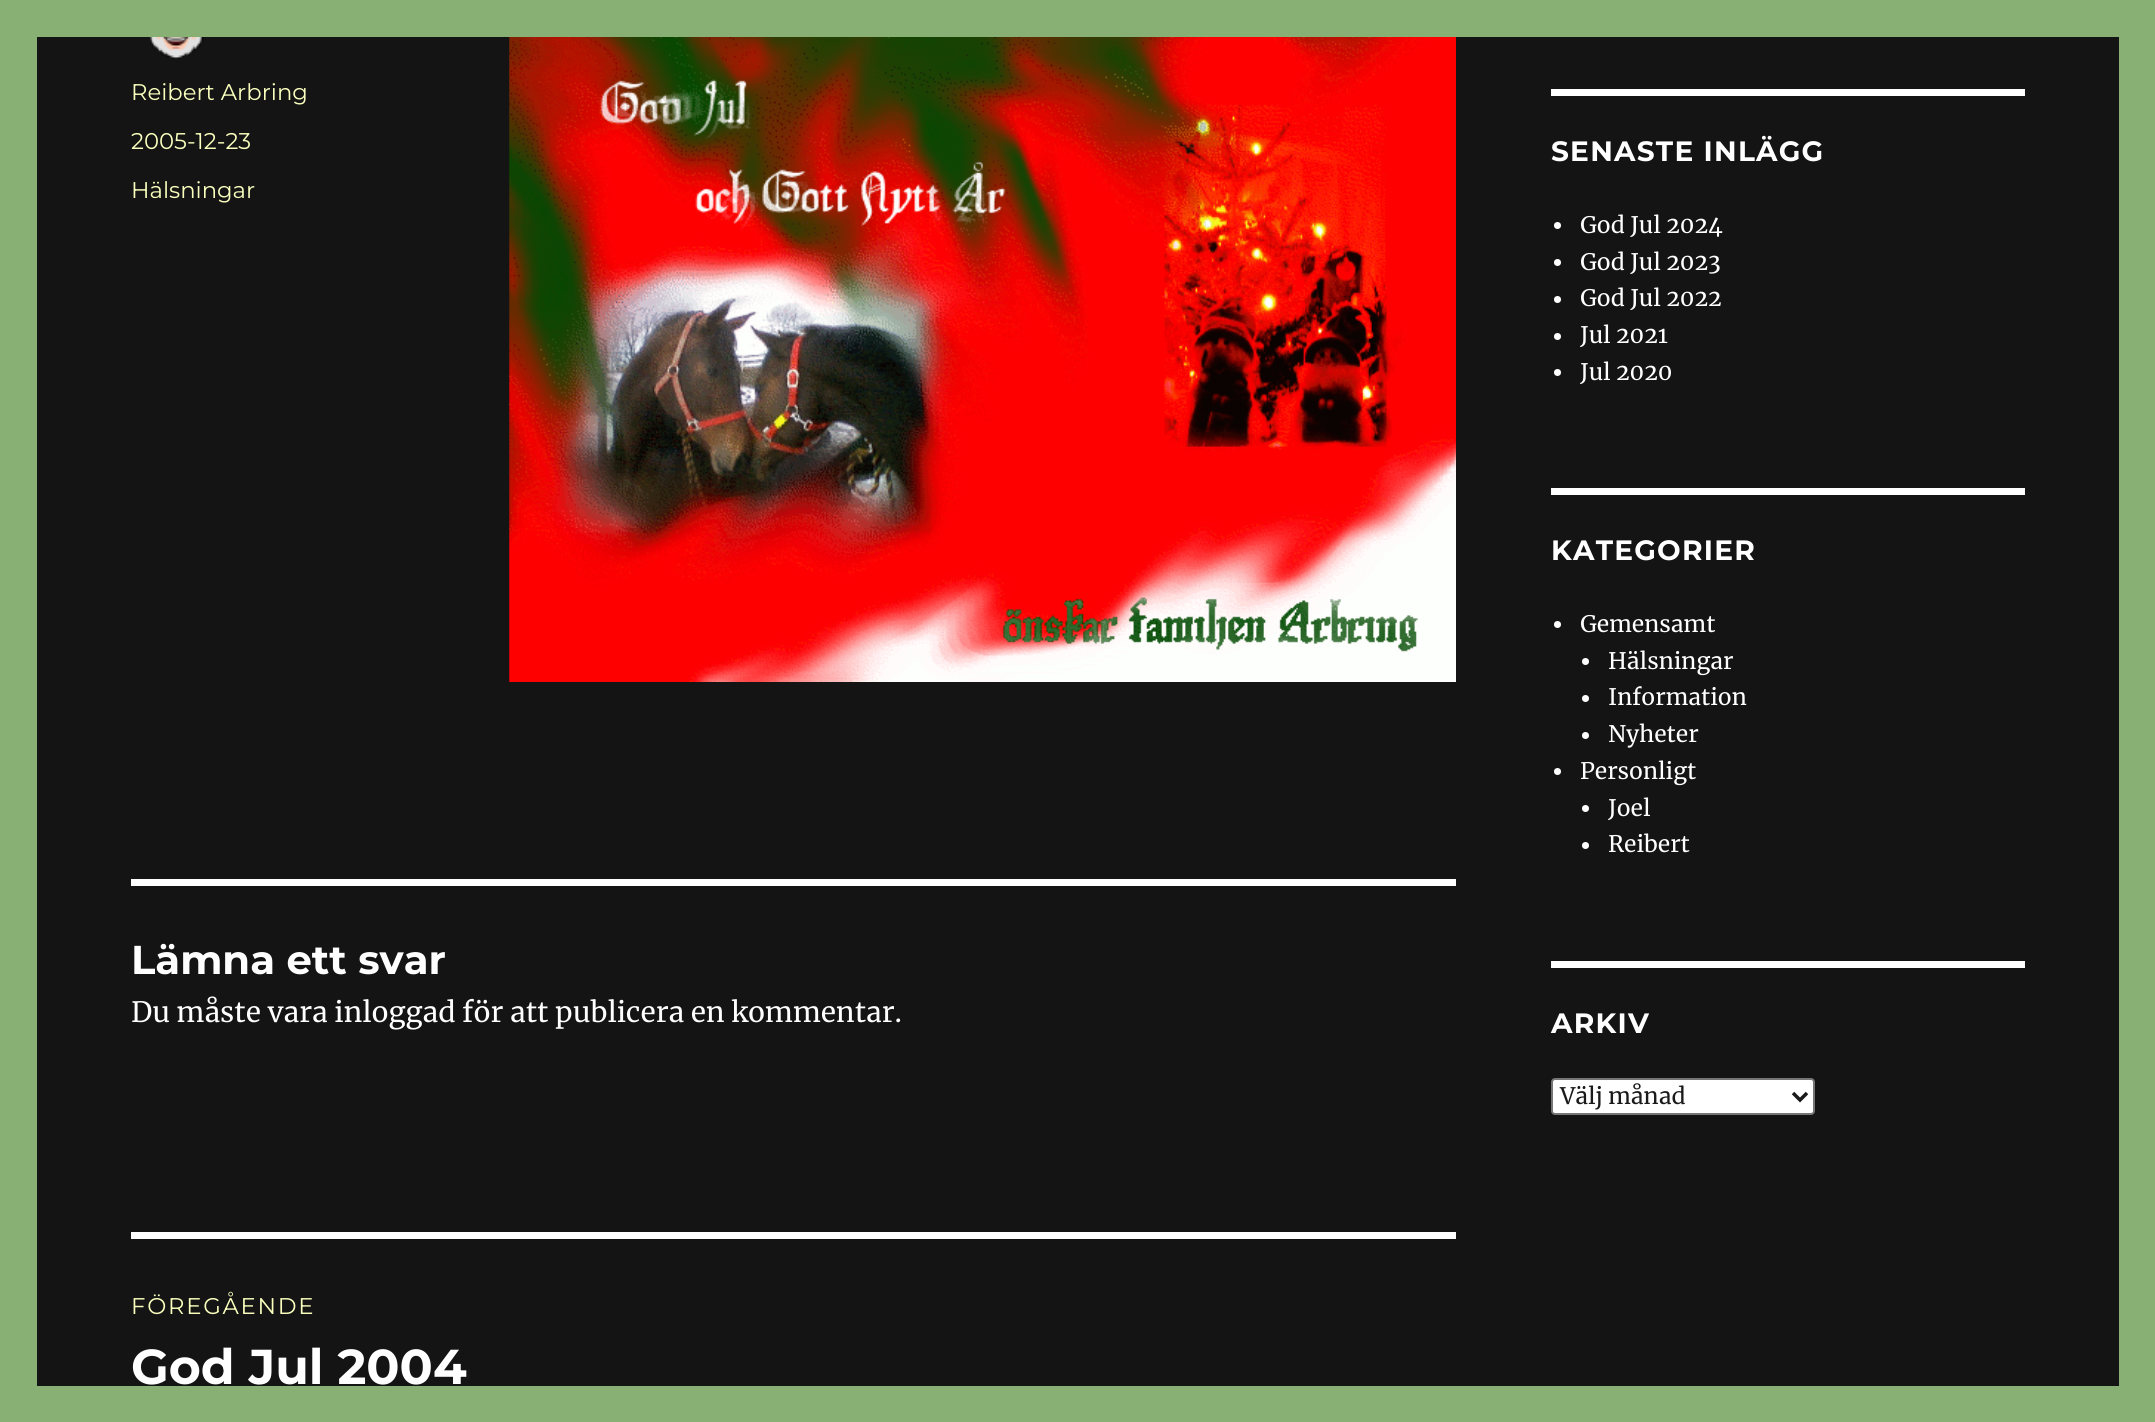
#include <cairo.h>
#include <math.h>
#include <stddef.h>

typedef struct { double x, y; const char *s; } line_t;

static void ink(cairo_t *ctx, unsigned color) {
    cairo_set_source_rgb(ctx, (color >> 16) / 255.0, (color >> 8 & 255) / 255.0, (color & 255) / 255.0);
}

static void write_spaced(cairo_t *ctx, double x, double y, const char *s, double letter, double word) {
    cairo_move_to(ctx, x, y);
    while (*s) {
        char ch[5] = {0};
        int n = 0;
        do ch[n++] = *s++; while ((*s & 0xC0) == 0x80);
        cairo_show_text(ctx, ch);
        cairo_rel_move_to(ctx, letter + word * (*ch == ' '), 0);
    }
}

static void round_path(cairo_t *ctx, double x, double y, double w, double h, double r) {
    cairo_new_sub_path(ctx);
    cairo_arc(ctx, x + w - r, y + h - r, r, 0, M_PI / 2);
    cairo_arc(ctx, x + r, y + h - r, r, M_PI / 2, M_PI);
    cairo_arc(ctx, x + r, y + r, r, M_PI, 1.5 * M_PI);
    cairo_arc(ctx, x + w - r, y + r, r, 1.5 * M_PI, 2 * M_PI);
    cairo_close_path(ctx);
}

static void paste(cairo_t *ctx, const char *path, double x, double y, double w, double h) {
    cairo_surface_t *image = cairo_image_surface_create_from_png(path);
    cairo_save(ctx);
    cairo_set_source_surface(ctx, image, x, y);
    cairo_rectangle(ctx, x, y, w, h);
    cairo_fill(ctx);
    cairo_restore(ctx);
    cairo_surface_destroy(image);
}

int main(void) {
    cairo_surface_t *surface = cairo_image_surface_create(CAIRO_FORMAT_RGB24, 2155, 1422);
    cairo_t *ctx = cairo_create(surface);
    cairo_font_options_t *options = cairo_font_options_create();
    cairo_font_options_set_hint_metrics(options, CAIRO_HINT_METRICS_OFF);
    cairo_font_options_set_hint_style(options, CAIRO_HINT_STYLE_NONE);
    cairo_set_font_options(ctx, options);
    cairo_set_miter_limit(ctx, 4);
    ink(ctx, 0x88B074);
    cairo_paint(ctx);
    ink(ctx, 0x141414);
    cairo_rectangle(ctx, 37, 37, 2082, 1349);
    cairo_fill(ctx);
    paste(ctx, "media/1.png", 148, 37, 56, 22);
    cairo_select_font_face(ctx, "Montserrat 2 Thin", CAIRO_FONT_SLANT_NORMAL, CAIRO_FONT_WEIGHT_NORMAL);
    cairo_set_font_size(ctx, 22.75);
    ink(ctx, 0xFAFFBD);
    {
        static const line_t items[] = {
            {131, 100, "Reibert Arbring"},
            {131, 149, "2005-12-23"},
            {131, 198, "Hälsningar"},
        };
        for (size_t i = 0; i < sizeof items / sizeof *items; i++) {
            cairo_move_to(ctx, items[i].x, items[i].y);
            cairo_show_text(ctx, items[i].s);
        }
    }
    paste(ctx, "media/2.png", 509, 37, 947, 645);
    ink(ctx, 0xFFFFFF);
    cairo_rectangle(ctx, 131, 879, 1325, 7);
    cairo_fill(ctx);
    cairo_select_font_face(ctx, "Montserrat Thin", CAIRO_FONT_SLANT_NORMAL, CAIRO_FONT_WEIGHT_NORMAL);
    cairo_set_font_size(ctx, 40.25);
    cairo_move_to(ctx, 131, 974);
    cairo_show_text(ctx, "Lämna ett svar");
    cairo_select_font_face(ctx, "Merriweather", CAIRO_FONT_SLANT_NORMAL, CAIRO_FONT_WEIGHT_NORMAL);
    cairo_set_font_size(ctx, 28);
    cairo_move_to(ctx, 131, 1022);
    cairo_show_text(ctx, "Du måste vara inloggad för att publicera en kommentar.");
    cairo_rectangle(ctx, 131, 1232, 1325, 7);
    cairo_fill(ctx);
    cairo_select_font_face(ctx, "Montserrat 2 Thin", CAIRO_FONT_SLANT_NORMAL, CAIRO_FONT_WEIGHT_NORMAL);
    cairo_set_font_size(ctx, 22.75);
    ink(ctx, 0xFAFFBD);
    write_spaced(ctx, 131, 1314, "FÖREGÅENDE", 1.75, 0);
    cairo_select_font_face(ctx, "Montserrat Thin", CAIRO_FONT_SLANT_NORMAL, CAIRO_FONT_WEIGHT_NORMAL);
    cairo_set_font_size(ctx, 49);
    ink(ctx, 0xFFFFFF);
    cairo_move_to(ctx, 131, 1384);
    cairo_show_text(ctx, "God Jul 2004");
    cairo_rectangle(ctx, 1551, 89, 474, 7);
    cairo_fill(ctx);
    cairo_set_font_size(ctx, 28);
    write_spaced(ctx, 1551, 161, "SENASTE INLÄGG", 1.25, 0);
    cairo_new_path(ctx);
    cairo_arc(ctx, 1557.5, 225.5, 3.5, 0, 2 * M_PI);
    cairo_fill(ctx);
    cairo_select_font_face(ctx, "Merriweather", CAIRO_FONT_SLANT_NORMAL, CAIRO_FONT_WEIGHT_NORMAL);
    cairo_set_font_size(ctx, 22.75);
    cairo_move_to(ctx, 1580, 233);
    cairo_show_text(ctx, "God Jul 2024");
    cairo_new_path(ctx);
    cairo_arc(ctx, 1557.5, 262.5, 3.5, 0, 2 * M_PI);
    cairo_fill(ctx);
    cairo_move_to(ctx, 1580, 270);
    cairo_show_text(ctx, "God Jul 2023");
    cairo_new_path(ctx);
    cairo_arc(ctx, 1557.5, 299.5, 3.5, 0, 2 * M_PI);
    cairo_fill(ctx);
    cairo_move_to(ctx, 1580, 306);
    cairo_show_text(ctx, "God Jul 2022");
    cairo_new_path(ctx);
    cairo_arc(ctx, 1557.5, 336.5, 3.5, 0, 2 * M_PI);
    cairo_fill(ctx);
    cairo_move_to(ctx, 1580, 343);
    cairo_show_text(ctx, "Jul 2021");
    cairo_new_path(ctx);
    cairo_arc(ctx, 1557.5, 372.5, 3.5, 0, 2 * M_PI);
    cairo_fill(ctx);
    cairo_move_to(ctx, 1580, 380);
    cairo_show_text(ctx, "Jul 2020");
    cairo_rectangle(ctx, 1551, 488, 474, 7);
    cairo_fill(ctx);
    cairo_select_font_face(ctx, "Montserrat Thin", CAIRO_FONT_SLANT_NORMAL, CAIRO_FONT_WEIGHT_NORMAL);
    cairo_set_font_size(ctx, 28);
    write_spaced(ctx, 1551, 560, "KATEGORIER", 1.25, 0);
    cairo_new_path(ctx);
    cairo_arc(ctx, 1557.5, 624.5, 3.5, 0, 2 * M_PI);
    cairo_fill(ctx);
    cairo_select_font_face(ctx, "Merriweather", CAIRO_FONT_SLANT_NORMAL, CAIRO_FONT_WEIGHT_NORMAL);
    cairo_set_font_size(ctx, 22.75);
    cairo_move_to(ctx, 1580, 632);
    cairo_show_text(ctx, "Gemensamt");
    cairo_new_path(ctx);
    cairo_arc(ctx, 1585.5, 661.5, 3.5, 0, 2 * M_PI);
    cairo_fill(ctx);
    cairo_move_to(ctx, 1608, 669);
    cairo_show_text(ctx, "Hälsningar");
    cairo_new_path(ctx);
    cairo_arc(ctx, 1585.5, 698.5, 3.5, 0, 2 * M_PI);
    cairo_fill(ctx);
    cairo_move_to(ctx, 1608, 705);
    cairo_show_text(ctx, "Information");
    cairo_new_path(ctx);
    cairo_arc(ctx, 1585.5, 735.5, 3.5, 0, 2 * M_PI);
    cairo_fill(ctx);
    cairo_move_to(ctx, 1608, 742);
    cairo_show_text(ctx, "Nyheter");
    cairo_new_path(ctx);
    cairo_arc(ctx, 1557.5, 771.5, 3.5, 0, 2 * M_PI);
    cairo_fill(ctx);
    cairo_move_to(ctx, 1580, 779);
    cairo_show_text(ctx, "Personligt");
    cairo_new_path(ctx);
    cairo_arc(ctx, 1585.5, 808.5, 3.5, 0, 2 * M_PI);
    cairo_fill(ctx);
    cairo_move_to(ctx, 1608, 816);
    cairo_show_text(ctx, "Joel");
    cairo_new_path(ctx);
    cairo_arc(ctx, 1585.5, 845.5, 3.5, 0, 2 * M_PI);
    cairo_fill(ctx);
    cairo_move_to(ctx, 1608, 852);
    cairo_show_text(ctx, "Reibert");
    cairo_rectangle(ctx, 1551, 961, 474, 7);
    cairo_fill(ctx);
    cairo_select_font_face(ctx, "Montserrat Thin", CAIRO_FONT_SLANT_NORMAL, CAIRO_FONT_WEIGHT_NORMAL);
    cairo_set_font_size(ctx, 28);
    write_spaced(ctx, 1551, 1033, "ARKIV", 1.25, 0);
    round_path(ctx, 1552, 1079, 262, 35, 3);
    cairo_fill_preserve(ctx);
    ink(ctx, 0x767676);
    cairo_stroke(ctx);
    cairo_new_path(ctx);
    cairo_move_to(ctx, 1793, 1093);
    cairo_line_to(ctx, 1800, 1100);
    cairo_line_to(ctx, 1807, 1093);
    ink(ctx, 0x1A1A1A);
    cairo_set_line_width(ctx, 3.5);
    cairo_stroke(ctx);
    cairo_select_font_face(ctx, "Merriweather", CAIRO_FONT_SLANT_NORMAL, CAIRO_FONT_WEIGHT_NORMAL);
    cairo_set_font_size(ctx, 22.75);
    cairo_move_to(ctx, 1560, 1104);
    cairo_show_text(ctx, "Välj månad");
    cairo_surface_write_to_png(surface, "image.png");
    cairo_font_options_destroy(options);
    cairo_destroy(ctx);
    cairo_surface_destroy(surface);
    return 0;
}
